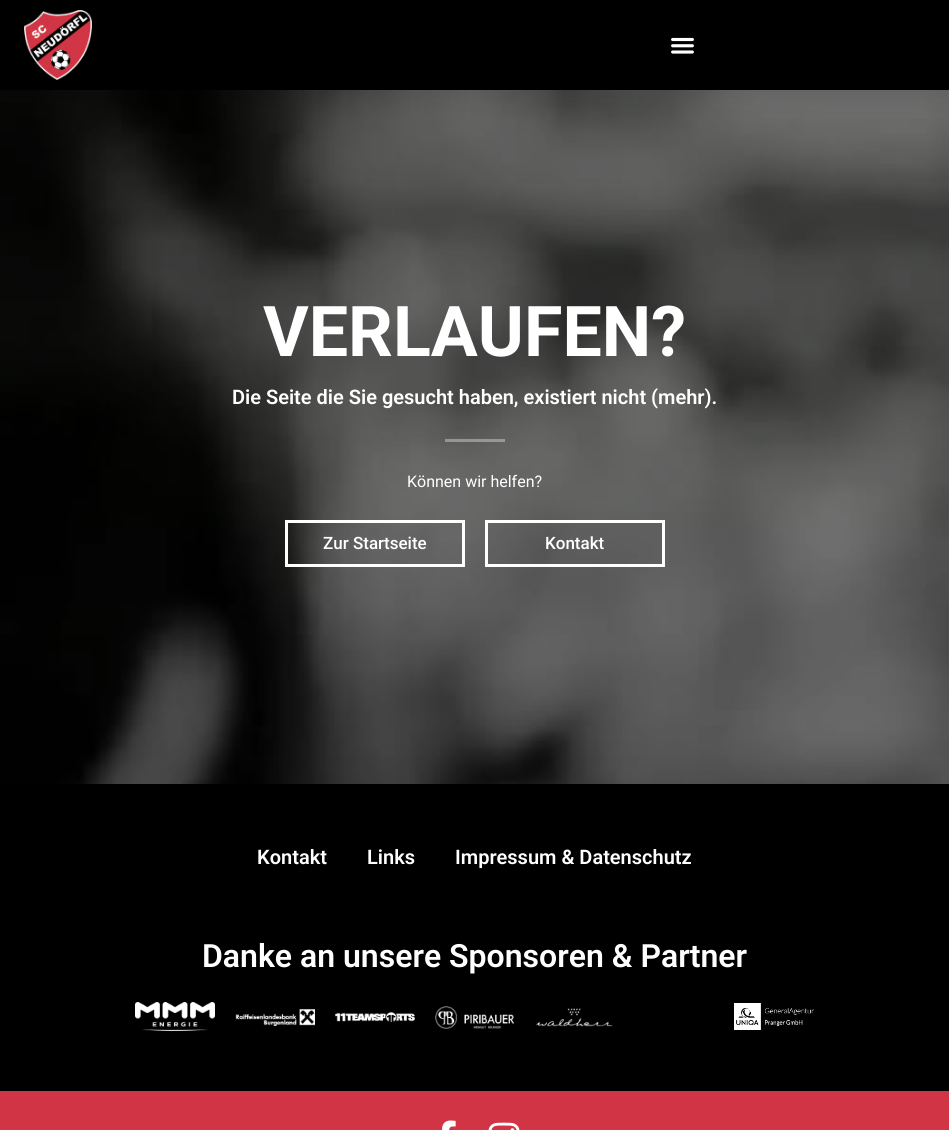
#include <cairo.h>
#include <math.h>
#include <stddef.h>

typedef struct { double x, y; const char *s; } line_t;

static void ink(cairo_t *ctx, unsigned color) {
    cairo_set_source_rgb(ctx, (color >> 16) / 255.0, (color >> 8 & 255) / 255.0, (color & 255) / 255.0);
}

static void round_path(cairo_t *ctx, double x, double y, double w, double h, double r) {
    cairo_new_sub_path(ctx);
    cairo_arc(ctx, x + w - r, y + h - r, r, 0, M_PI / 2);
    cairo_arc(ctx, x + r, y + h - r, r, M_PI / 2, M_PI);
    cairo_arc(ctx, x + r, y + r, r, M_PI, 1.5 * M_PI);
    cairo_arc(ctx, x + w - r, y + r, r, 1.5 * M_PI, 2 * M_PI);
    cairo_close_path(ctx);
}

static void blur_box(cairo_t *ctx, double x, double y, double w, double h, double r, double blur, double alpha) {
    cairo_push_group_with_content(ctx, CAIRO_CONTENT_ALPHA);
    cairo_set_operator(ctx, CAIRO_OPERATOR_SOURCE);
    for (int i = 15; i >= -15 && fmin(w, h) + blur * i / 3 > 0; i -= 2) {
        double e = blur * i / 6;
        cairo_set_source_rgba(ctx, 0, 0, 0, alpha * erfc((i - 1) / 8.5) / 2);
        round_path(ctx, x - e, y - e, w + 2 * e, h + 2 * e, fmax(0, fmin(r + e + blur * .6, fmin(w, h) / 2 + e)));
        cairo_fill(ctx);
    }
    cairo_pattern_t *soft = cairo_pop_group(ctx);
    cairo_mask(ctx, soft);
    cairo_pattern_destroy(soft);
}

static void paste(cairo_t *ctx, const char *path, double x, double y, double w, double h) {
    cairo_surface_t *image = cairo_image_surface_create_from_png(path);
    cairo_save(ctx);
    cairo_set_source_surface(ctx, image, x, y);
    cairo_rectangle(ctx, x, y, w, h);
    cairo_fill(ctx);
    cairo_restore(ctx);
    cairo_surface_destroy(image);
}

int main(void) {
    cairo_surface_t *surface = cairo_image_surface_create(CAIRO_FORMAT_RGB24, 949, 1130);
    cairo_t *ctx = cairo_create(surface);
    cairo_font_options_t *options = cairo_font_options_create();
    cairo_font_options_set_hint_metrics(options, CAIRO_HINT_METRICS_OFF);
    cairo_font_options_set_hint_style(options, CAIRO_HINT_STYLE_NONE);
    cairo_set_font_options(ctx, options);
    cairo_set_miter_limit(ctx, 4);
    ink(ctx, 0xFFFFFF);
    cairo_paint(ctx);
    paste(ctx, "media/3.png", 0, 90, 949, 694);
    ink(ctx, 0x000000);
    blur_box(ctx, 0, 10, 949, 90, 0, 10, 0.1);
    ink(ctx, 0x000000);
    cairo_rectangle(ctx, 0, 0, 949, 90);
    cairo_fill(ctx);
    paste(ctx, "media/1.png", 24, 10, 68, 70);
    paste(ctx, "media/2.png", 671, 37, 23, 17);
    cairo_select_font_face(ctx, "Roboto", CAIRO_FONT_SLANT_NORMAL, CAIRO_FONT_WEIGHT_BOLD);
    cairo_set_font_size(ctx, 70);
    ink(ctx, 0xFFFFFF);
    cairo_move_to(ctx, 263, 356);
    cairo_show_text(ctx, "VERLAUFEN?");
    cairo_select_font_face(ctx, "Roboto SemiBold", CAIRO_FONT_SLANT_NORMAL, CAIRO_FONT_WEIGHT_NORMAL);
    cairo_set_font_size(ctx, 20);
    cairo_move_to(ctx, 232, 404);
    cairo_show_text(ctx, "Die Seite die Sie gesucht haben, existiert nicht (mehr).");
    cairo_set_source_rgba(ctx, 1, 1, 1, 0.35);
    cairo_rectangle(ctx, 445, 439, 60, 3);
    cairo_fill(ctx);
    cairo_select_font_face(ctx, "Roboto", CAIRO_FONT_SLANT_NORMAL, CAIRO_FONT_WEIGHT_NORMAL);
    cairo_set_font_size(ctx, 16);
    ink(ctx, 0xFFFFFF);
    cairo_move_to(ctx, 407, 487);
    cairo_show_text(ctx, "Können wir helfen?");
    cairo_rectangle(ctx, 286.5, 521.5, 177, 44);
    cairo_set_line_width(ctx, 3);
    cairo_stroke(ctx);
    cairo_select_font_face(ctx, "Roboto Medium", CAIRO_FONT_SLANT_NORMAL, CAIRO_FONT_WEIGHT_NORMAL);
    cairo_set_font_size(ctx, 17);
    cairo_move_to(ctx, 323, 549);
    cairo_show_text(ctx, "Zur Startseite");
    cairo_rectangle(ctx, 486.5, 521.5, 177, 44);
    cairo_stroke(ctx);
    cairo_move_to(ctx, 545, 549);
    cairo_show_text(ctx, "Kontakt");
    ink(ctx, 0x000000);
    cairo_rectangle(ctx, 0, 784, 949, 307);
    cairo_fill(ctx);
    cairo_select_font_face(ctx, "Roboto SemiBold", CAIRO_FONT_SLANT_NORMAL, CAIRO_FONT_WEIGHT_NORMAL);
    cairo_set_font_size(ctx, 20);
    ink(ctx, 0xFFFFFF);
    {
        static const line_t items[] = {
            {257, 864, "Kontakt"},
            {367, 864, "Links"},
            {455, 864, "Impressum & Datenschutz"},
        };
        for (size_t i = 0; i < sizeof items / sizeof *items; i++) {
            cairo_move_to(ctx, items[i].x, items[i].y);
            cairo_show_text(ctx, items[i].s);
        }
    }
    cairo_set_font_size(ctx, 32);
    cairo_move_to(ctx, 202, 967);
    cairo_show_text(ctx, "Danke an unsere Sponsoren & Partner");
    paste(ctx, "media/4.png", 135, 1002, 80, 29);
    paste(ctx, "media/5.png", 235, 1009, 80, 17);
    paste(ctx, "media/6.png", 335, 1012, 80, 10);
    paste(ctx, "media/7.png", 435, 1006, 79, 23);
    paste(ctx, "media/8.png", 536, 1008, 77, 19);
    paste(ctx, "media/9.png", 734, 1003, 80, 27);
    ink(ctx, 0xD13545);
    cairo_rectangle(ctx, 0, 1091, 949, 39);
    cairo_fill(ctx);
    paste(ctx, "media/10.png", 442, 1120, 14, 10);
    paste(ctx, "media/11.png", 488, 1122, 32, 8);
    cairo_surface_write_to_png(surface, "image.png");
    cairo_font_options_destroy(options);
    cairo_destroy(ctx);
    cairo_surface_destroy(surface);
    return 0;
}
